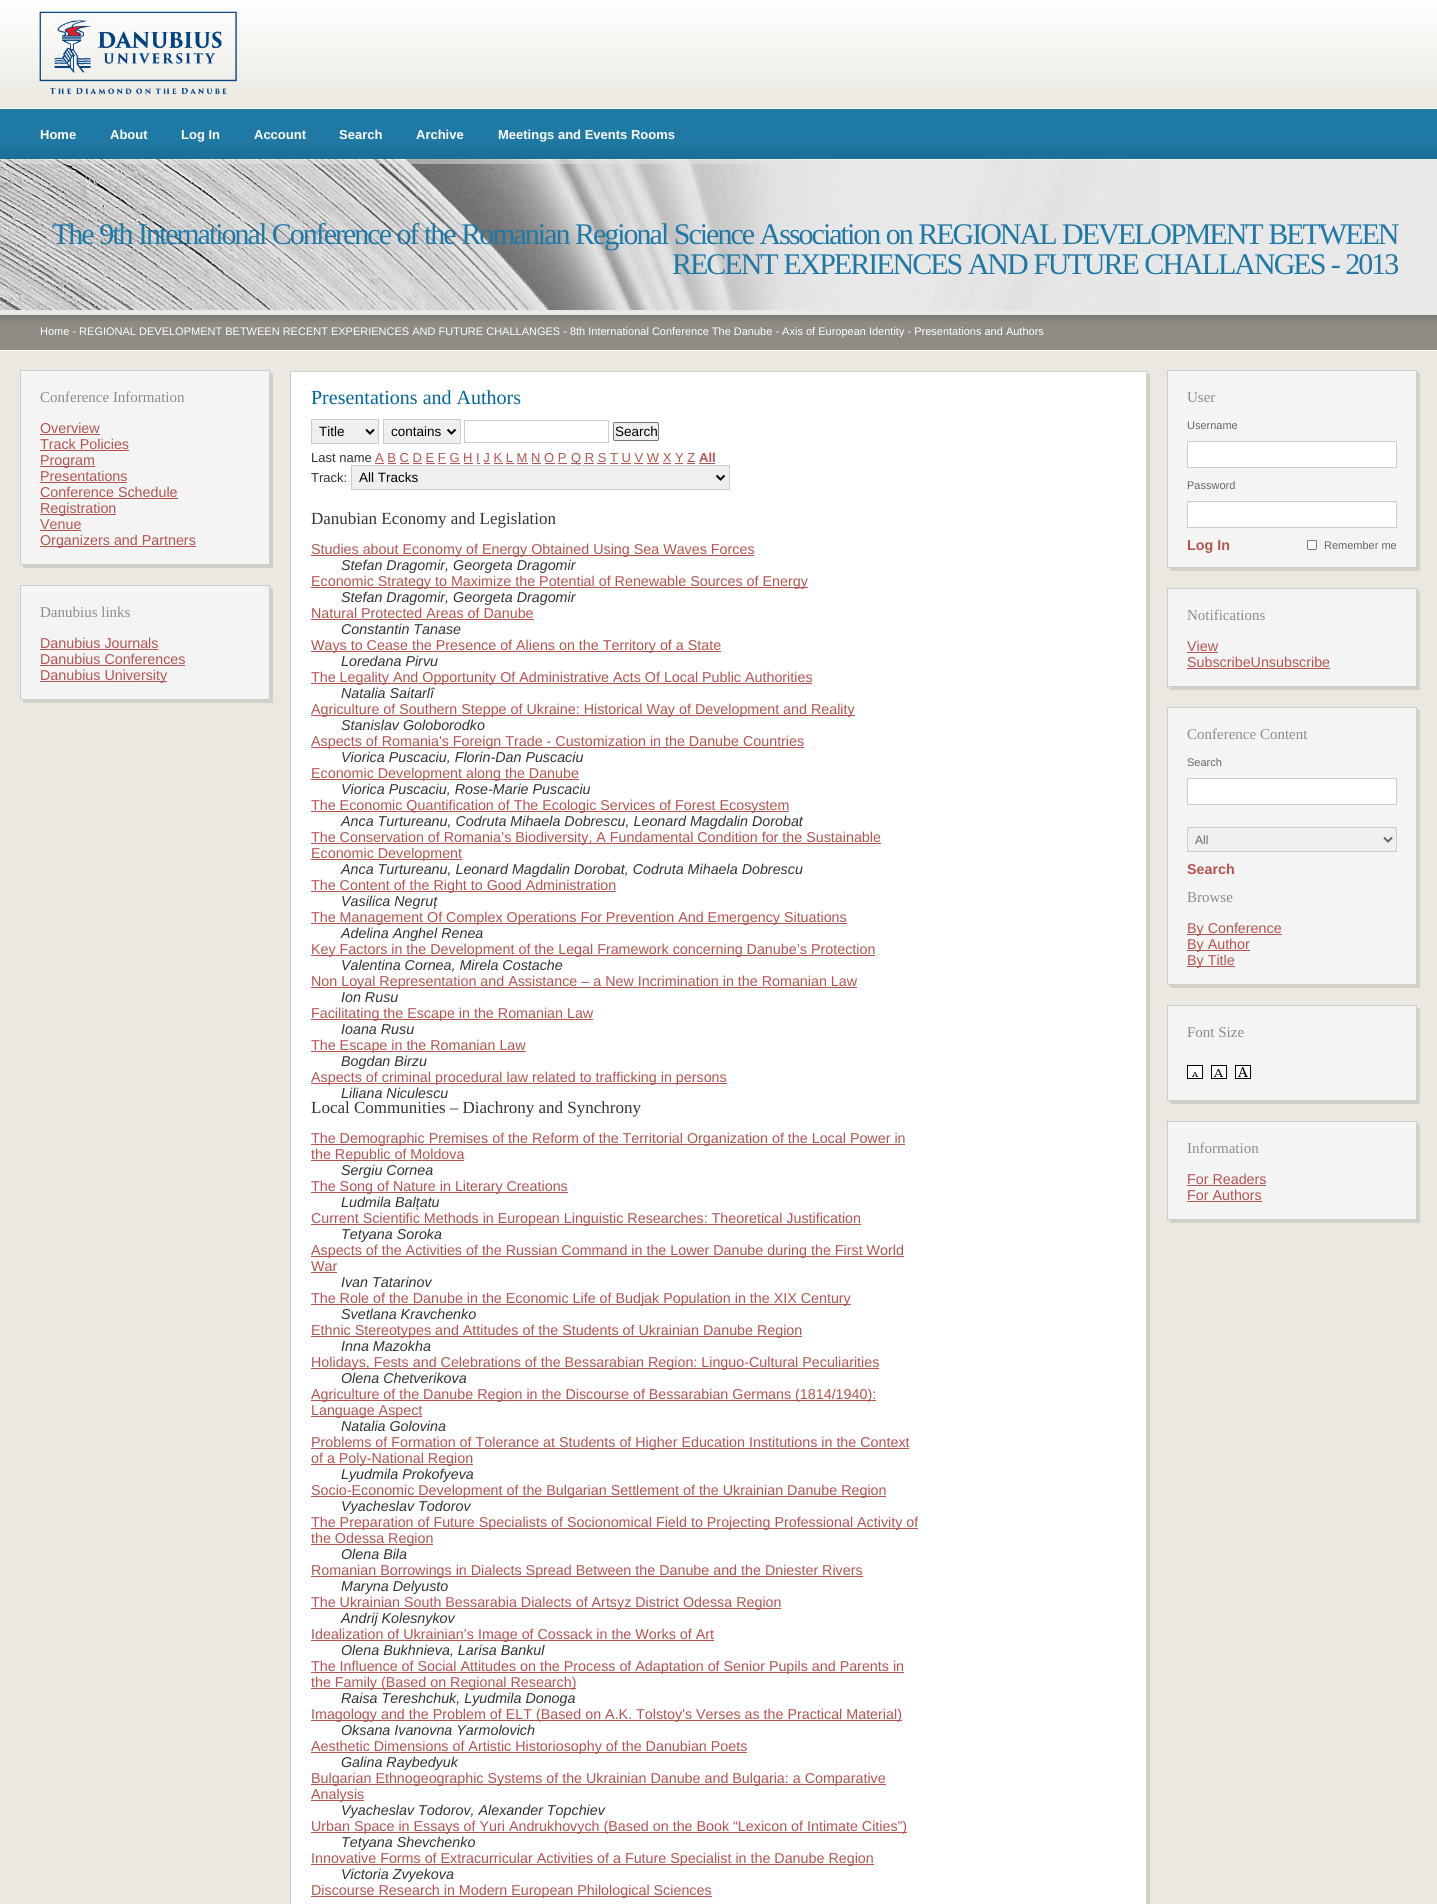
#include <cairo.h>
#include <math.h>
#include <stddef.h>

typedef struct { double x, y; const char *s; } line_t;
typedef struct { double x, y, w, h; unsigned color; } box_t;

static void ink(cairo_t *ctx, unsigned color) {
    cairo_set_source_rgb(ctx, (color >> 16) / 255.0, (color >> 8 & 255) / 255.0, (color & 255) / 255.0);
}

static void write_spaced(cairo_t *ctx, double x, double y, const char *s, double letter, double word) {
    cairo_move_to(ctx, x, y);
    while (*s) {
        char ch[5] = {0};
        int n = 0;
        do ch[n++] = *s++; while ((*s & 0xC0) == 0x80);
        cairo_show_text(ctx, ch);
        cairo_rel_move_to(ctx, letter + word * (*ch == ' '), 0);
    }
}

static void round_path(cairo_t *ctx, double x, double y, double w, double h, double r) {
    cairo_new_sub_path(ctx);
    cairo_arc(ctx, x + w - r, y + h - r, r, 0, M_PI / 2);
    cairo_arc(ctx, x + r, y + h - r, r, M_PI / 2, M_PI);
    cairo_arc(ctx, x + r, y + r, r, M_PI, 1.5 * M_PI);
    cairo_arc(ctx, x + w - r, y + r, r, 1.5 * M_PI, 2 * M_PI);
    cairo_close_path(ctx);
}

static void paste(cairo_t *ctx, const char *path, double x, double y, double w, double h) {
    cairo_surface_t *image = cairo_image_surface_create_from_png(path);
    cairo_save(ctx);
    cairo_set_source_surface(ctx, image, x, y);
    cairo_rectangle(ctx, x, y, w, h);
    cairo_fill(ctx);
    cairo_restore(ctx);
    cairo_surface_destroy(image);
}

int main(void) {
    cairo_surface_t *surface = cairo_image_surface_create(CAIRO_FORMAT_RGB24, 1437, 1904);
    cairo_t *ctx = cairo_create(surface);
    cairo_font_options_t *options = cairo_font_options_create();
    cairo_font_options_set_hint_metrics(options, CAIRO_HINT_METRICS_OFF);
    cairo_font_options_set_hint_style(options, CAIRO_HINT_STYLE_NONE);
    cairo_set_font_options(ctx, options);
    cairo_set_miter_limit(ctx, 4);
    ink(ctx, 0xFFFFFF);
    cairo_paint(ctx);
    paste(ctx, "media/1.png", 0, 0, 1437, 109);
    paste(ctx, "media/2.png", 39, 11, 198, 84);
    paste(ctx, "media/3.png", 0, 109, 1437, 50);
    cairo_select_font_face(ctx, "Liberation Sans", CAIRO_FONT_SLANT_NORMAL, CAIRO_FONT_WEIGHT_BOLD);
    cairo_set_font_size(ctx, 13);
    ink(ctx, 0xFFFFFF);
    {
        static const line_t items[] = {
            {40, 139, "Home"},
            {110, 139, "About"},
            {181, 139, "Log In"},
            {254, 139, "Account"},
            {339, 139, "Search"},
            {416, 139, "Archive"},
            {498, 139, "Meetings and Events Rooms"},
        };
        for (size_t i = 0; i < sizeof items / sizeof *items; i++) {
            cairo_move_to(ctx, items[i].x, items[i].y);
            cairo_show_text(ctx, items[i].s);
        }
    }
    ink(ctx, 0xE8E8E8);
    cairo_rectangle(ctx, 1160, 159, 277, 151);
    cairo_fill(ctx);
    paste(ctx, "media/4.png", 0, 159, 1160, 151);
    cairo_set_source_rgba(ctx, 0.906, 0.906, 0.906, 0.5);
    cairo_rectangle(ctx, 0, 159, 1160, 5);
    cairo_fill(ctx);
    cairo_select_font_face(ctx, "Liberation Serif", CAIRO_FONT_SLANT_NORMAL, CAIRO_FONT_WEIGHT_NORMAL);
    cairo_set_font_size(ctx, 30);
    ink(ctx, 0x1F79A5);
    write_spaced(ctx, 52, 244, "The 9th International Conference of the Romanian Regional Science Association on REGIONAL DEVELOPMENT BETWEEN", -2, 1);
    write_spaced(ctx, 672, 274, "RECENT EXPERIENCES AND FUTURE CHALLANGES - 2013", -2, 1);
    paste(ctx, "media/5.png", 0, 310, 1437, 41);
    cairo_select_font_face(ctx, "Liberation Sans", CAIRO_FONT_SLANT_NORMAL, CAIRO_FONT_WEIGHT_NORMAL);
    cairo_set_font_size(ctx, 11);
    ink(ctx, 0xFFFFFF);
    cairo_move_to(ctx, 40, 335);
    cairo_show_text(ctx, "Home - REGIONAL DEVELOPMENT BETWEEN RECENT EXPERIENCES AND FUTURE CHALLANGES - 8th International Conference The Danube - Axis of European Identity - Presentations and Authors");
    ink(ctx, 0xEAE8E0);
    cairo_rectangle(ctx, 0, 351, 1437, 1553);
    cairo_fill(ctx);
    paste(ctx, "media/6.png", 20, 370, 253, 198);
    paste(ctx, "media/7.png", 21, 370, 252, 3);
    cairo_select_font_face(ctx, "Liberation Serif", CAIRO_FONT_SLANT_NORMAL, CAIRO_FONT_WEIGHT_NORMAL);
    cairo_set_font_size(ctx, 15);
    ink(ctx, 0x8E8C85);
    cairo_move_to(ctx, 40, 402);
    cairo_show_text(ctx, "Conference Information");
    cairo_select_font_face(ctx, "Liberation Sans", CAIRO_FONT_SLANT_NORMAL, CAIRO_FONT_WEIGHT_NORMAL);
    cairo_set_font_size(ctx, 14.3);
    ink(ctx, 0xB45451);
    cairo_move_to(ctx, 40, 433);
    cairo_show_text(ctx, "Overview");
    cairo_rectangle(ctx, 40, 434, 60, 1);
    cairo_fill(ctx);
    cairo_move_to(ctx, 40, 449);
    cairo_show_text(ctx, "Track Policies");
    cairo_rectangle(ctx, 40, 450, 89, 1);
    cairo_fill(ctx);
    cairo_rectangle(ctx, 40, 466, 55, 1);
    cairo_fill(ctx);
    cairo_move_to(ctx, 40, 465);
    cairo_show_text(ctx, "Program");
    cairo_move_to(ctx, 40, 481);
    cairo_show_text(ctx, "Presentations");
    cairo_rectangle(ctx, 40, 482, 87, 1);
    cairo_fill(ctx);
    cairo_move_to(ctx, 40, 497);
    cairo_show_text(ctx, "Conference Schedule");
    cairo_rectangle(ctx, 40, 498, 138, 1);
    cairo_fill(ctx);
    cairo_rectangle(ctx, 40, 514, 76, 1);
    cairo_fill(ctx);
    cairo_move_to(ctx, 40, 513);
    cairo_show_text(ctx, "Registration");
    cairo_move_to(ctx, 40, 529);
    cairo_show_text(ctx, "Venue");
    cairo_rectangle(ctx, 40, 530, 41, 1);
    cairo_fill(ctx);
    cairo_rectangle(ctx, 40, 546, 156, 1);
    cairo_fill(ctx);
    cairo_move_to(ctx, 40, 545);
    cairo_show_text(ctx, "Organizers and Partners");
    paste(ctx, "media/8.png", 20, 564, 250, 4);
    paste(ctx, "media/9.png", 20, 585, 253, 118);
    paste(ctx, "media/7.png", 21, 585, 252, 3);
    cairo_select_font_face(ctx, "Liberation Serif", CAIRO_FONT_SLANT_NORMAL, CAIRO_FONT_WEIGHT_NORMAL);
    cairo_set_font_size(ctx, 15);
    ink(ctx, 0x8E8C85);
    cairo_move_to(ctx, 40, 617);
    cairo_show_text(ctx, "Danubius links");
    cairo_select_font_face(ctx, "Liberation Sans", CAIRO_FONT_SLANT_NORMAL, CAIRO_FONT_WEIGHT_NORMAL);
    cairo_set_font_size(ctx, 14.3);
    ink(ctx, 0xB45451);
    cairo_move_to(ctx, 40, 648);
    cairo_show_text(ctx, "Danubius Journals");
    cairo_rectangle(ctx, 40, 649, 118, 1);
    cairo_fill(ctx);
    cairo_move_to(ctx, 40, 664);
    cairo_show_text(ctx, "Danubius Conferences");
    cairo_rectangle(ctx, 40, 665, 145, 1);
    cairo_fill(ctx);
    cairo_rectangle(ctx, 40, 681, 127, 1);
    cairo_fill(ctx);
    cairo_move_to(ctx, 40, 680);
    cairo_show_text(ctx, "Danubius University");
    paste(ctx, "media/8.png", 20, 699, 250, 4);
    {
        static const box_t items[] = {
            {290, 372, 857, 2, 0xFFFFFF},
            {290, 371, 857, 1, 0xD2D0C9},
            {1146, 371, 1, 4, 0xD2D0C9},
            {290, 371, 1, 1533, 0xD2D0C9},
            {291, 374, 855, 1530, 0xFFFFFF},
            {1146, 374, 4, 1530, 0xD2D0C9},
        };
        for (size_t i = 0; i < sizeof items / sizeof *items; i++) {
            ink(ctx, items[i].color);
            cairo_rectangle(ctx, items[i].x, items[i].y, items[i].w, items[i].h);
            cairo_fill(ctx);
        }
    }
    cairo_select_font_face(ctx, "Liberation Serif", CAIRO_FONT_SLANT_NORMAL, CAIRO_FONT_WEIGHT_NORMAL);
    cairo_set_font_size(ctx, 20);
    ink(ctx, 0x006699);
    cairo_move_to(ctx, 311, 404);
    cairo_show_text(ctx, "Presentations and Authors");
    ink(ctx, 0xEFEFEF);
    cairo_rectangle(ctx, 311.5, 419.5, 67, 24);
    cairo_fill_preserve(ctx);
    ink(ctx, 0xCCCCCC);
    cairo_set_line_width(ctx, 1);
    cairo_stroke(ctx);
    cairo_new_path(ctx);
    cairo_move_to(ctx, 366, 429.5);
    cairo_line_to(ctx, 370, 433.5);
    cairo_line_to(ctx, 374, 429.5);
    ink(ctx, 0x000000);
    cairo_set_line_width(ctx, 2);
    cairo_stroke(ctx);
    cairo_select_font_face(ctx, "Liberation Sans", CAIRO_FONT_SLANT_NORMAL, CAIRO_FONT_WEIGHT_NORMAL);
    cairo_set_font_size(ctx, 13.5);
    cairo_move_to(ctx, 319, 436);
    cairo_show_text(ctx, "Title");
    ink(ctx, 0xEFEFEF);
    cairo_rectangle(ctx, 383.5, 419.5, 77, 24);
    cairo_fill_preserve(ctx);
    ink(ctx, 0xCCCCCC);
    cairo_set_line_width(ctx, 1);
    cairo_stroke(ctx);
    cairo_new_path(ctx);
    cairo_move_to(ctx, 447.5, 429.5);
    cairo_line_to(ctx, 451.5, 433.5);
    cairo_line_to(ctx, 455.5, 429.5);
    ink(ctx, 0x000000);
    cairo_set_line_width(ctx, 2);
    cairo_stroke(ctx);
    cairo_move_to(ctx, 391, 436);
    cairo_show_text(ctx, "contains");
    cairo_rectangle(ctx, 464.5, 420.5, 144, 22);
    ink(ctx, 0xCCCCCC);
    cairo_set_line_width(ctx, 1);
    cairo_stroke(ctx);
    ink(ctx, 0xEFEFEF);
    round_path(ctx, 613.5, 422.5, 45, 18, 1.5);
    cairo_fill_preserve(ctx);
    ink(ctx, 0x767676);
    cairo_stroke(ctx);
    ink(ctx, 0x000000);
    cairo_move_to(ctx, 615, 436);
    cairo_show_text(ctx, "Search");
    cairo_set_font_size(ctx, 13);
    ink(ctx, 0x333333);
    cairo_move_to(ctx, 311, 462);
    cairo_show_text(ctx, "Last name");
    ink(ctx, 0xB45451);
    cairo_move_to(ctx, 375, 462);
    cairo_show_text(ctx, "A B C D E F G H I J K L M N O P");
    cairo_rectangle(ctx, 375, 463, 9, 1);
    cairo_fill(ctx);
    cairo_rectangle(ctx, 571, 463, 10, 1);
    cairo_fill(ctx);
    cairo_move_to(ctx, 571, 462);
    cairo_show_text(ctx, "Q R S T U V W X Y Z");
    cairo_select_font_face(ctx, "Liberation Sans", CAIRO_FONT_SLANT_NORMAL, CAIRO_FONT_WEIGHT_BOLD);
    cairo_move_to(ctx, 699, 462);
    cairo_show_text(ctx, "All");
    {
        static const box_t items[] = {
            {699, 463, 16, 1, 0xB45451},
            {388, 463, 8, 1, 0xB45451},
            {400, 463, 9, 1, 0xB45451},
            {413, 463, 9, 1, 0xB45451},
            {426, 463, 9, 1, 0xB45451},
            {438, 463, 8, 1, 0xB45451},
            {450, 463, 10, 1, 0xB45451},
            {464, 463, 9, 1, 0xB45451},
            {477, 463, 3, 1, 0xB45451},
            {484, 463, 6, 1, 0xB45451},
            {494, 463, 9, 1, 0xB45451},
            {506, 463, 8, 1, 0xB45451},
            {517, 463, 11, 1, 0xB45451},
            {532, 463, 9, 1, 0xB45451},
            {545, 463, 10, 1, 0xB45451},
            {558, 463, 9, 1, 0xB45451},
            {584, 463, 10, 1, 0xB45451},
            {597, 463, 9, 1, 0xB45451},
            {610, 463, 8, 1, 0xB45451},
            {621, 463, 10, 1, 0xB45451},
            {634, 463, 9, 1, 0xB45451},
            {647, 463, 12, 1, 0xB45451},
            {663, 463, 8, 1, 0xB45451},
            {675, 463, 8, 1, 0xB45451},
            {687, 463, 8, 1, 0xB45451},
        };
        for (size_t i = 0; i < sizeof items / sizeof *items; i++) {
            ink(ctx, items[i].color);
            cairo_rectangle(ctx, items[i].x, items[i].y, items[i].w, items[i].h);
            cairo_fill(ctx);
        }
    }
    cairo_select_font_face(ctx, "Liberation Sans", CAIRO_FONT_SLANT_NORMAL, CAIRO_FONT_WEIGHT_NORMAL);
    ink(ctx, 0x333333);
    cairo_move_to(ctx, 311, 482);
    cairo_show_text(ctx, "Track:");
    ink(ctx, 0xEFEFEF);
    cairo_rectangle(ctx, 351.5, 465.5, 378, 24);
    cairo_fill_preserve(ctx);
    ink(ctx, 0xCCCCCC);
    cairo_stroke(ctx);
    cairo_new_path(ctx);
    cairo_move_to(ctx, 716.5, 475.5);
    cairo_line_to(ctx, 720.5, 479.5);
    cairo_line_to(ctx, 724.5, 475.5);
    ink(ctx, 0x000000);
    cairo_set_line_width(ctx, 2);
    cairo_stroke(ctx);
    cairo_set_font_size(ctx, 13.5);
    cairo_move_to(ctx, 359, 482);
    cairo_show_text(ctx, "All Tracks");
    cairo_select_font_face(ctx, "Liberation Serif", CAIRO_FONT_SLANT_NORMAL, CAIRO_FONT_WEIGHT_NORMAL);
    cairo_set_font_size(ctx, 17);
    ink(ctx, 0x333333);
    cairo_move_to(ctx, 311, 524);
    cairo_show_text(ctx, "Danubian Economy and Legislation");
    ink(ctx, 0xB45451);
    cairo_rectangle(ctx, 311, 555, 443, 1);
    cairo_fill(ctx);
    cairo_select_font_face(ctx, "Liberation Sans", CAIRO_FONT_SLANT_NORMAL, CAIRO_FONT_WEIGHT_NORMAL);
    cairo_set_font_size(ctx, 14.3);
    cairo_move_to(ctx, 311, 554);
    cairo_show_text(ctx, "Studies about Economy of Energy Obtained Using Sea Waves Forces");
    cairo_select_font_face(ctx, "Liberation Sans", CAIRO_FONT_SLANT_ITALIC, CAIRO_FONT_WEIGHT_NORMAL);
    ink(ctx, 0x333333);
    cairo_move_to(ctx, 341, 570);
    cairo_show_text(ctx, "Stefan Dragomir, Georgeta Dragomir");
    ink(ctx, 0xB45451);
    cairo_rectangle(ctx, 311, 587, 497, 1);
    cairo_fill(ctx);
    cairo_select_font_face(ctx, "Liberation Sans", CAIRO_FONT_SLANT_NORMAL, CAIRO_FONT_WEIGHT_NORMAL);
    cairo_move_to(ctx, 311, 586);
    cairo_show_text(ctx, "Economic Strategy to Maximize the Potential of Renewable Sources of Energy");
    cairo_select_font_face(ctx, "Liberation Sans", CAIRO_FONT_SLANT_ITALIC, CAIRO_FONT_WEIGHT_NORMAL);
    ink(ctx, 0x333333);
    cairo_move_to(ctx, 341, 602);
    cairo_show_text(ctx, "Stefan Dragomir, Georgeta Dragomir");
    cairo_select_font_face(ctx, "Liberation Sans", CAIRO_FONT_SLANT_NORMAL, CAIRO_FONT_WEIGHT_NORMAL);
    ink(ctx, 0xB45451);
    cairo_move_to(ctx, 311, 618);
    cairo_show_text(ctx, "Natural Protected Areas of Danube");
    cairo_rectangle(ctx, 311, 619, 223, 1);
    cairo_fill(ctx);
    cairo_select_font_face(ctx, "Liberation Sans", CAIRO_FONT_SLANT_ITALIC, CAIRO_FONT_WEIGHT_NORMAL);
    ink(ctx, 0x333333);
    cairo_move_to(ctx, 341, 634);
    cairo_show_text(ctx, "Constantin Tanase");
    ink(ctx, 0xB45451);
    cairo_rectangle(ctx, 311, 651, 410, 1);
    cairo_fill(ctx);
    cairo_select_font_face(ctx, "Liberation Sans", CAIRO_FONT_SLANT_NORMAL, CAIRO_FONT_WEIGHT_NORMAL);
    cairo_move_to(ctx, 311, 650);
    cairo_show_text(ctx, "Ways to Cease the Presence of Aliens on the Territory of a State");
    cairo_select_font_face(ctx, "Liberation Sans", CAIRO_FONT_SLANT_ITALIC, CAIRO_FONT_WEIGHT_NORMAL);
    ink(ctx, 0x333333);
    cairo_move_to(ctx, 341, 666);
    cairo_show_text(ctx, "Loredana Pirvu");
    ink(ctx, 0xB45451);
    cairo_rectangle(ctx, 311, 683, 501, 1);
    cairo_fill(ctx);
    cairo_select_font_face(ctx, "Liberation Sans", CAIRO_FONT_SLANT_NORMAL, CAIRO_FONT_WEIGHT_NORMAL);
    cairo_move_to(ctx, 311, 682);
    cairo_show_text(ctx, "The Legality And Opportunity Of Administrative Acts Of Local Public Authorities");
    cairo_select_font_face(ctx, "Liberation Sans", CAIRO_FONT_SLANT_ITALIC, CAIRO_FONT_WEIGHT_NORMAL);
    ink(ctx, 0x333333);
    cairo_move_to(ctx, 341, 698);
    cairo_show_text(ctx, "Natalia Saitarlî");
    ink(ctx, 0xB45451);
    cairo_rectangle(ctx, 311, 715, 544, 1);
    cairo_fill(ctx);
    cairo_select_font_face(ctx, "Liberation Sans", CAIRO_FONT_SLANT_NORMAL, CAIRO_FONT_WEIGHT_NORMAL);
    cairo_move_to(ctx, 311, 714);
    cairo_show_text(ctx, "Agriculture of Southern Steppe of Ukraine: Historical Way of Development and Reality");
    cairo_select_font_face(ctx, "Liberation Sans", CAIRO_FONT_SLANT_ITALIC, CAIRO_FONT_WEIGHT_NORMAL);
    ink(ctx, 0x333333);
    cairo_move_to(ctx, 341, 730);
    cairo_show_text(ctx, "Stanislav Goloborodko");
    ink(ctx, 0xB45451);
    cairo_rectangle(ctx, 311, 747, 493, 1);
    cairo_fill(ctx);
    cairo_select_font_face(ctx, "Liberation Sans", CAIRO_FONT_SLANT_NORMAL, CAIRO_FONT_WEIGHT_NORMAL);
    cairo_move_to(ctx, 311, 746);
    cairo_show_text(ctx, "Aspects of Romania's Foreign Trade - Customization in the Danube Countries");
    cairo_select_font_face(ctx, "Liberation Sans", CAIRO_FONT_SLANT_ITALIC, CAIRO_FONT_WEIGHT_NORMAL);
    ink(ctx, 0x333333);
    cairo_move_to(ctx, 341, 762);
    cairo_show_text(ctx, "Viorica Puscaciu, Florin-Dan Puscaciu");
    ink(ctx, 0xB45451);
    cairo_rectangle(ctx, 311, 779, 268, 1);
    cairo_fill(ctx);
    cairo_select_font_face(ctx, "Liberation Sans", CAIRO_FONT_SLANT_NORMAL, CAIRO_FONT_WEIGHT_NORMAL);
    cairo_move_to(ctx, 311, 778);
    cairo_show_text(ctx, "Economic Development along the Danube");
    cairo_select_font_face(ctx, "Liberation Sans", CAIRO_FONT_SLANT_ITALIC, CAIRO_FONT_WEIGHT_NORMAL);
    ink(ctx, 0x333333);
    cairo_move_to(ctx, 341, 794);
    cairo_show_text(ctx, "Viorica Puscaciu, Rose-Marie Puscaciu");
    ink(ctx, 0xB45451);
    cairo_rectangle(ctx, 311, 811, 478, 1);
    cairo_fill(ctx);
    cairo_select_font_face(ctx, "Liberation Sans", CAIRO_FONT_SLANT_NORMAL, CAIRO_FONT_WEIGHT_NORMAL);
    cairo_move_to(ctx, 311, 810);
    cairo_show_text(ctx, "The Economic Quantification of The Ecologic Services of Forest Ecosystem");
    cairo_select_font_face(ctx, "Liberation Sans", CAIRO_FONT_SLANT_ITALIC, CAIRO_FONT_WEIGHT_NORMAL);
    ink(ctx, 0x333333);
    cairo_move_to(ctx, 341, 826);
    cairo_show_text(ctx, "Anca Turtureanu, Codruta Mihaela Dobrescu, Leonard Magdalin Dorobat");
    ink(ctx, 0xB45451);
    cairo_rectangle(ctx, 311, 843, 570, 1);
    cairo_fill(ctx);
    cairo_select_font_face(ctx, "Liberation Sans", CAIRO_FONT_SLANT_NORMAL, CAIRO_FONT_WEIGHT_NORMAL);
    cairo_move_to(ctx, 311, 842);
    cairo_show_text(ctx, "The Conservation of Romania’s Biodiversity, A Fundamental Condition for the Sustainable");
    cairo_rectangle(ctx, 311, 859, 151, 1);
    cairo_fill(ctx);
    cairo_move_to(ctx, 311, 858);
    cairo_show_text(ctx, "Economic Development");
    cairo_select_font_face(ctx, "Liberation Sans", CAIRO_FONT_SLANT_ITALIC, CAIRO_FONT_WEIGHT_NORMAL);
    ink(ctx, 0x333333);
    cairo_move_to(ctx, 341, 874);
    cairo_show_text(ctx, "Anca Turtureanu, Leonard Magdalin Dorobat, Codruta Mihaela Dobrescu");
    ink(ctx, 0xB45451);
    cairo_rectangle(ctx, 311, 891, 305, 1);
    cairo_fill(ctx);
    cairo_select_font_face(ctx, "Liberation Sans", CAIRO_FONT_SLANT_NORMAL, CAIRO_FONT_WEIGHT_NORMAL);
    cairo_move_to(ctx, 311, 890);
    cairo_show_text(ctx, "The Content of the Right to Good Administration");
    cairo_select_font_face(ctx, "Liberation Sans", CAIRO_FONT_SLANT_ITALIC, CAIRO_FONT_WEIGHT_NORMAL);
    ink(ctx, 0x333333);
    cairo_move_to(ctx, 341, 906);
    cairo_show_text(ctx, "Vasilica Negruț");
    ink(ctx, 0xB45451);
    cairo_rectangle(ctx, 311, 923, 536, 1);
    cairo_fill(ctx);
    cairo_select_font_face(ctx, "Liberation Sans", CAIRO_FONT_SLANT_NORMAL, CAIRO_FONT_WEIGHT_NORMAL);
    cairo_move_to(ctx, 311, 922);
    cairo_show_text(ctx, "The Management Of Complex Operations For Prevention And Emergency Situations");
    cairo_select_font_face(ctx, "Liberation Sans", CAIRO_FONT_SLANT_ITALIC, CAIRO_FONT_WEIGHT_NORMAL);
    ink(ctx, 0x333333);
    cairo_move_to(ctx, 341, 938);
    cairo_show_text(ctx, "Adelina Anghel Renea");
    ink(ctx, 0xB45451);
    cairo_rectangle(ctx, 311, 955, 564, 1);
    cairo_fill(ctx);
    cairo_select_font_face(ctx, "Liberation Sans", CAIRO_FONT_SLANT_NORMAL, CAIRO_FONT_WEIGHT_NORMAL);
    cairo_move_to(ctx, 311, 954);
    cairo_show_text(ctx, "Key Factors in the Development of the Legal Framework concerning Danube’s Protection");
    cairo_select_font_face(ctx, "Liberation Sans", CAIRO_FONT_SLANT_ITALIC, CAIRO_FONT_WEIGHT_NORMAL);
    ink(ctx, 0x333333);
    cairo_move_to(ctx, 341, 970);
    cairo_show_text(ctx, "Valentina Cornea, Mirela Costache");
    ink(ctx, 0xB45451);
    cairo_rectangle(ctx, 311, 987, 546, 1);
    cairo_fill(ctx);
    cairo_select_font_face(ctx, "Liberation Sans", CAIRO_FONT_SLANT_NORMAL, CAIRO_FONT_WEIGHT_NORMAL);
    cairo_move_to(ctx, 311, 986);
    cairo_show_text(ctx, "Non Loyal Representation and Assistance – a New Incrimination in the Romanian Law");
    cairo_select_font_face(ctx, "Liberation Sans", CAIRO_FONT_SLANT_ITALIC, CAIRO_FONT_WEIGHT_NORMAL);
    ink(ctx, 0x333333);
    cairo_move_to(ctx, 341, 1002);
    cairo_show_text(ctx, "Ion Rusu");
    ink(ctx, 0xB45451);
    cairo_rectangle(ctx, 311, 1019, 282, 1);
    cairo_fill(ctx);
    cairo_select_font_face(ctx, "Liberation Sans", CAIRO_FONT_SLANT_NORMAL, CAIRO_FONT_WEIGHT_NORMAL);
    cairo_move_to(ctx, 311, 1018);
    cairo_show_text(ctx, "Facilitating the Escape in the Romanian Law");
    cairo_select_font_face(ctx, "Liberation Sans", CAIRO_FONT_SLANT_ITALIC, CAIRO_FONT_WEIGHT_NORMAL);
    ink(ctx, 0x333333);
    cairo_move_to(ctx, 341, 1034);
    cairo_show_text(ctx, "Ioana Rusu");
    ink(ctx, 0xB45451);
    cairo_rectangle(ctx, 311, 1051, 215, 1);
    cairo_fill(ctx);
    cairo_select_font_face(ctx, "Liberation Sans", CAIRO_FONT_SLANT_NORMAL, CAIRO_FONT_WEIGHT_NORMAL);
    cairo_move_to(ctx, 311, 1050);
    cairo_show_text(ctx, "The Escape in the Romanian Law");
    cairo_select_font_face(ctx, "Liberation Sans", CAIRO_FONT_SLANT_ITALIC, CAIRO_FONT_WEIGHT_NORMAL);
    ink(ctx, 0x333333);
    cairo_move_to(ctx, 341, 1066);
    cairo_show_text(ctx, "Bogdan Birzu");
    ink(ctx, 0xB45451);
    cairo_rectangle(ctx, 311, 1083, 416, 1);
    cairo_fill(ctx);
    cairo_select_font_face(ctx, "Liberation Sans", CAIRO_FONT_SLANT_NORMAL, CAIRO_FONT_WEIGHT_NORMAL);
    cairo_move_to(ctx, 311, 1082);
    cairo_show_text(ctx, "Aspects of criminal procedural law related to trafficking in persons");
    cairo_select_font_face(ctx, "Liberation Sans", CAIRO_FONT_SLANT_ITALIC, CAIRO_FONT_WEIGHT_NORMAL);
    ink(ctx, 0x333333);
    cairo_move_to(ctx, 341, 1098);
    cairo_show_text(ctx, "Liliana Niculescu");
    cairo_select_font_face(ctx, "Liberation Serif", CAIRO_FONT_SLANT_NORMAL, CAIRO_FONT_WEIGHT_NORMAL);
    cairo_set_font_size(ctx, 17);
    cairo_move_to(ctx, 311, 1113);
    cairo_show_text(ctx, "Local Communities – Diachrony and Synchrony");
    ink(ctx, 0xB45451);
    cairo_rectangle(ctx, 311, 1144, 594, 1);
    cairo_fill(ctx);
    cairo_select_font_face(ctx, "Liberation Sans", CAIRO_FONT_SLANT_NORMAL, CAIRO_FONT_WEIGHT_NORMAL);
    cairo_set_font_size(ctx, 14.3);
    cairo_move_to(ctx, 311, 1143);
    cairo_show_text(ctx, "The Demographic Premises of the Reform of the Territorial Organization of the Local Power in");
    cairo_rectangle(ctx, 311, 1160, 153, 1);
    cairo_fill(ctx);
    cairo_move_to(ctx, 311, 1159);
    cairo_show_text(ctx, "the Republic of Moldova");
    cairo_select_font_face(ctx, "Liberation Sans", CAIRO_FONT_SLANT_ITALIC, CAIRO_FONT_WEIGHT_NORMAL);
    ink(ctx, 0x333333);
    cairo_move_to(ctx, 341, 1175);
    cairo_show_text(ctx, "Sergiu Cornea");
    ink(ctx, 0xB45451);
    cairo_rectangle(ctx, 311, 1192, 257, 1);
    cairo_fill(ctx);
    cairo_select_font_face(ctx, "Liberation Sans", CAIRO_FONT_SLANT_NORMAL, CAIRO_FONT_WEIGHT_NORMAL);
    cairo_move_to(ctx, 311, 1191);
    cairo_show_text(ctx, "The Song of Nature in Literary Creations");
    cairo_select_font_face(ctx, "Liberation Sans", CAIRO_FONT_SLANT_ITALIC, CAIRO_FONT_WEIGHT_NORMAL);
    ink(ctx, 0x333333);
    cairo_move_to(ctx, 341, 1207);
    cairo_show_text(ctx, "Ludmila Balțatu");
    ink(ctx, 0xB45451);
    cairo_rectangle(ctx, 311, 1224, 550, 1);
    cairo_fill(ctx);
    cairo_select_font_face(ctx, "Liberation Sans", CAIRO_FONT_SLANT_NORMAL, CAIRO_FONT_WEIGHT_NORMAL);
    cairo_move_to(ctx, 311, 1223);
    cairo_show_text(ctx, "Current Scientific Methods in European Linguistic Researches: Theoretical Justification");
    cairo_select_font_face(ctx, "Liberation Sans", CAIRO_FONT_SLANT_ITALIC, CAIRO_FONT_WEIGHT_NORMAL);
    ink(ctx, 0x333333);
    cairo_move_to(ctx, 341, 1239);
    cairo_show_text(ctx, "Tetyana Soroka");
    ink(ctx, 0xB45451);
    cairo_rectangle(ctx, 311, 1256, 593, 1);
    cairo_fill(ctx);
    cairo_select_font_face(ctx, "Liberation Sans", CAIRO_FONT_SLANT_NORMAL, CAIRO_FONT_WEIGHT_NORMAL);
    cairo_move_to(ctx, 311, 1255);
    cairo_show_text(ctx, "Aspects of the Activities of the Russian Command in the Lower Danube during the First World");
    cairo_move_to(ctx, 311, 1271);
    cairo_show_text(ctx, "War");
    cairo_rectangle(ctx, 311, 1272, 26, 1);
    cairo_fill(ctx);
    cairo_select_font_face(ctx, "Liberation Sans", CAIRO_FONT_SLANT_ITALIC, CAIRO_FONT_WEIGHT_NORMAL);
    ink(ctx, 0x333333);
    cairo_move_to(ctx, 341, 1287);
    cairo_show_text(ctx, "Ivan Tatarinov");
    ink(ctx, 0xB45451);
    cairo_rectangle(ctx, 311, 1304, 540, 1);
    cairo_fill(ctx);
    cairo_select_font_face(ctx, "Liberation Sans", CAIRO_FONT_SLANT_NORMAL, CAIRO_FONT_WEIGHT_NORMAL);
    cairo_move_to(ctx, 311, 1303);
    cairo_show_text(ctx, "The Role of the Danube in the Economic Life of Budjak Population in the ХІХ Century");
    cairo_select_font_face(ctx, "Liberation Sans", CAIRO_FONT_SLANT_ITALIC, CAIRO_FONT_WEIGHT_NORMAL);
    ink(ctx, 0x333333);
    cairo_move_to(ctx, 341, 1319);
    cairo_show_text(ctx, "Svetlana Kravchenko");
    ink(ctx, 0xB45451);
    cairo_rectangle(ctx, 311, 1336, 491, 1);
    cairo_fill(ctx);
    cairo_select_font_face(ctx, "Liberation Sans", CAIRO_FONT_SLANT_NORMAL, CAIRO_FONT_WEIGHT_NORMAL);
    cairo_move_to(ctx, 311, 1335);
    cairo_show_text(ctx, "Ethnic Stereotypes and Attitudes of the Students of Ukrainian Danube Region");
    cairo_select_font_face(ctx, "Liberation Sans", CAIRO_FONT_SLANT_ITALIC, CAIRO_FONT_WEIGHT_NORMAL);
    ink(ctx, 0x333333);
    cairo_move_to(ctx, 341, 1351);
    cairo_show_text(ctx, "Inna Mazokha");
    ink(ctx, 0xB45451);
    cairo_rectangle(ctx, 311, 1368, 568, 1);
    cairo_fill(ctx);
    cairo_select_font_face(ctx, "Liberation Sans", CAIRO_FONT_SLANT_NORMAL, CAIRO_FONT_WEIGHT_NORMAL);
    cairo_move_to(ctx, 311, 1367);
    cairo_show_text(ctx, "Holidays, Fests and Celebrations of the Bessarabian Region: Linguo-Cultural Peculiarities");
    cairo_select_font_face(ctx, "Liberation Sans", CAIRO_FONT_SLANT_ITALIC, CAIRO_FONT_WEIGHT_NORMAL);
    ink(ctx, 0x333333);
    cairo_move_to(ctx, 341, 1383);
    cairo_show_text(ctx, "Olena Chetverikova");
    ink(ctx, 0xB45451);
    cairo_rectangle(ctx, 311, 1400, 565, 1);
    cairo_fill(ctx);
    cairo_select_font_face(ctx, "Liberation Sans", CAIRO_FONT_SLANT_NORMAL, CAIRO_FONT_WEIGHT_NORMAL);
    cairo_move_to(ctx, 311, 1399);
    cairo_show_text(ctx, "Agriculture of the Danube Region in the Discourse of Bessarabian Germans (1814/1940):");
    cairo_rectangle(ctx, 311, 1416, 111, 1);
    cairo_fill(ctx);
    cairo_move_to(ctx, 311, 1415);
    cairo_show_text(ctx, "Language Aspect");
    cairo_select_font_face(ctx, "Liberation Sans", CAIRO_FONT_SLANT_ITALIC, CAIRO_FONT_WEIGHT_NORMAL);
    ink(ctx, 0x333333);
    cairo_move_to(ctx, 341, 1431);
    cairo_show_text(ctx, "Natalia Golovina");
    ink(ctx, 0xB45451);
    cairo_rectangle(ctx, 311, 1448, 598, 1);
    cairo_fill(ctx);
    cairo_select_font_face(ctx, "Liberation Sans", CAIRO_FONT_SLANT_NORMAL, CAIRO_FONT_WEIGHT_NORMAL);
    cairo_move_to(ctx, 311, 1447);
    cairo_show_text(ctx, "Problems of Formation of Tolerance at Students of Higher Education Institutions in the Context");
    cairo_rectangle(ctx, 311, 1464, 162, 1);
    cairo_fill(ctx);
    cairo_move_to(ctx, 311, 1463);
    cairo_show_text(ctx, "of a Poly-National Region");
    cairo_select_font_face(ctx, "Liberation Sans", CAIRO_FONT_SLANT_ITALIC, CAIRO_FONT_WEIGHT_NORMAL);
    ink(ctx, 0x333333);
    cairo_move_to(ctx, 341, 1479);
    cairo_show_text(ctx, "Lyudmila Prokofyeva");
    ink(ctx, 0xB45451);
    cairo_rectangle(ctx, 311, 1496, 575, 1);
    cairo_fill(ctx);
    cairo_select_font_face(ctx, "Liberation Sans", CAIRO_FONT_SLANT_NORMAL, CAIRO_FONT_WEIGHT_NORMAL);
    cairo_move_to(ctx, 311, 1495);
    cairo_show_text(ctx, "Socio-Economic Development of the Bulgarian Settlement of the Ukrainian Danube Region");
    cairo_select_font_face(ctx, "Liberation Sans", CAIRO_FONT_SLANT_ITALIC, CAIRO_FONT_WEIGHT_NORMAL);
    ink(ctx, 0x333333);
    cairo_move_to(ctx, 341, 1511);
    cairo_show_text(ctx, "Vyacheslav Todorov");
    ink(ctx, 0xB45451);
    cairo_rectangle(ctx, 311, 1528, 607, 1);
    cairo_fill(ctx);
    cairo_select_font_face(ctx, "Liberation Sans", CAIRO_FONT_SLANT_NORMAL, CAIRO_FONT_WEIGHT_NORMAL);
    cairo_move_to(ctx, 311, 1527);
    cairo_show_text(ctx, "The Preparation of Future Specialists of Socionomical Field to Projecting Professional Activity of");
    cairo_rectangle(ctx, 311, 1544, 122, 1);
    cairo_fill(ctx);
    cairo_move_to(ctx, 311, 1543);
    cairo_show_text(ctx, "the Odessa Region");
    cairo_select_font_face(ctx, "Liberation Sans", CAIRO_FONT_SLANT_ITALIC, CAIRO_FONT_WEIGHT_NORMAL);
    ink(ctx, 0x333333);
    cairo_move_to(ctx, 341, 1559);
    cairo_show_text(ctx, "Olena Bila");
    ink(ctx, 0xB45451);
    cairo_rectangle(ctx, 311, 1576, 552, 1);
    cairo_fill(ctx);
    cairo_select_font_face(ctx, "Liberation Sans", CAIRO_FONT_SLANT_NORMAL, CAIRO_FONT_WEIGHT_NORMAL);
    cairo_move_to(ctx, 311, 1575);
    cairo_show_text(ctx, "Romanian Borrowings in Dialects Spread Between the Danube and the Dniester Rivers");
    cairo_select_font_face(ctx, "Liberation Sans", CAIRO_FONT_SLANT_ITALIC, CAIRO_FONT_WEIGHT_NORMAL);
    ink(ctx, 0x333333);
    cairo_move_to(ctx, 341, 1591);
    cairo_show_text(ctx, "Maryna Delyusto");
    ink(ctx, 0xB45451);
    cairo_rectangle(ctx, 311, 1608, 470, 1);
    cairo_fill(ctx);
    cairo_select_font_face(ctx, "Liberation Sans", CAIRO_FONT_SLANT_NORMAL, CAIRO_FONT_WEIGHT_NORMAL);
    cairo_move_to(ctx, 311, 1607);
    cairo_show_text(ctx, "The Ukrainian South Bessarabia Dialects of Artsyz District Odessa Region");
    cairo_select_font_face(ctx, "Liberation Sans", CAIRO_FONT_SLANT_ITALIC, CAIRO_FONT_WEIGHT_NORMAL);
    ink(ctx, 0x333333);
    cairo_move_to(ctx, 341, 1623);
    cairo_show_text(ctx, "Andrij Kolesnykov");
    ink(ctx, 0xB45451);
    cairo_rectangle(ctx, 311, 1640, 403, 1);
    cairo_fill(ctx);
    cairo_select_font_face(ctx, "Liberation Sans", CAIRO_FONT_SLANT_NORMAL, CAIRO_FONT_WEIGHT_NORMAL);
    cairo_move_to(ctx, 311, 1639);
    cairo_show_text(ctx, "Idealization of Ukrainian’s Image of Cossack in the Works of Art");
    cairo_select_font_face(ctx, "Liberation Sans", CAIRO_FONT_SLANT_ITALIC, CAIRO_FONT_WEIGHT_NORMAL);
    ink(ctx, 0x333333);
    cairo_move_to(ctx, 341, 1655);
    cairo_show_text(ctx, "Olena Bukhnieva, Larisa Bankul");
    ink(ctx, 0xB45451);
    cairo_rectangle(ctx, 311, 1672, 593, 1);
    cairo_fill(ctx);
    cairo_select_font_face(ctx, "Liberation Sans", CAIRO_FONT_SLANT_NORMAL, CAIRO_FONT_WEIGHT_NORMAL);
    cairo_move_to(ctx, 311, 1671);
    cairo_show_text(ctx, "The Influence of Social Attitudes on the Process of Adaptation of Senior Pupils and Parents in");
    cairo_rectangle(ctx, 311, 1688, 265, 1);
    cairo_fill(ctx);
    cairo_move_to(ctx, 311, 1687);
    cairo_show_text(ctx, "the Family (Based on Regional Research)");
    cairo_select_font_face(ctx, "Liberation Sans", CAIRO_FONT_SLANT_ITALIC, CAIRO_FONT_WEIGHT_NORMAL);
    ink(ctx, 0x333333);
    cairo_move_to(ctx, 341, 1703);
    cairo_show_text(ctx, "Raisa Tereshchuk, Lyudmila Donoga");
    ink(ctx, 0xB45451);
    cairo_rectangle(ctx, 311, 1720, 591, 1);
    cairo_fill(ctx);
    cairo_select_font_face(ctx, "Liberation Sans", CAIRO_FONT_SLANT_NORMAL, CAIRO_FONT_WEIGHT_NORMAL);
    cairo_move_to(ctx, 311, 1719);
    cairo_show_text(ctx, "Imagology and the Problem of ELT (Based on A.K. Tolstoy's Verses as the Practical Material)");
    cairo_select_font_face(ctx, "Liberation Sans", CAIRO_FONT_SLANT_ITALIC, CAIRO_FONT_WEIGHT_NORMAL);
    ink(ctx, 0x333333);
    cairo_move_to(ctx, 341, 1735);
    cairo_show_text(ctx, "Oksana Ivanovna Yarmolovich");
    ink(ctx, 0xB45451);
    cairo_rectangle(ctx, 311, 1752, 436, 1);
    cairo_fill(ctx);
    cairo_select_font_face(ctx, "Liberation Sans", CAIRO_FONT_SLANT_NORMAL, CAIRO_FONT_WEIGHT_NORMAL);
    cairo_move_to(ctx, 311, 1751);
    cairo_show_text(ctx, "Aesthetic Dimensions of Artistic Historiosophy of the Danubian Poets");
    cairo_select_font_face(ctx, "Liberation Sans", CAIRO_FONT_SLANT_ITALIC, CAIRO_FONT_WEIGHT_NORMAL);
    ink(ctx, 0x333333);
    cairo_move_to(ctx, 341, 1767);
    cairo_show_text(ctx, "Galina Raybedyuk");
    ink(ctx, 0xB45451);
    cairo_rectangle(ctx, 311, 1784, 575, 1);
    cairo_fill(ctx);
    cairo_select_font_face(ctx, "Liberation Sans", CAIRO_FONT_SLANT_NORMAL, CAIRO_FONT_WEIGHT_NORMAL);
    cairo_move_to(ctx, 311, 1783);
    cairo_show_text(ctx, "Bulgarian Ethnogeographic Systems of the Ukrainian Danube and Bulgaria: a Comparative");
    cairo_rectangle(ctx, 311, 1800, 53, 1);
    cairo_fill(ctx);
    cairo_move_to(ctx, 311, 1799);
    cairo_show_text(ctx, "Analysis");
    cairo_select_font_face(ctx, "Liberation Sans", CAIRO_FONT_SLANT_ITALIC, CAIRO_FONT_WEIGHT_NORMAL);
    ink(ctx, 0x333333);
    cairo_move_to(ctx, 341, 1815);
    cairo_show_text(ctx, "Vyacheslav Todorov, Alexander Topchiev");
    ink(ctx, 0xB45451);
    cairo_rectangle(ctx, 311, 1832, 596, 1);
    cairo_fill(ctx);
    cairo_select_font_face(ctx, "Liberation Sans", CAIRO_FONT_SLANT_NORMAL, CAIRO_FONT_WEIGHT_NORMAL);
    cairo_move_to(ctx, 311, 1831);
    cairo_show_text(ctx, "Urban Space in Essays of Yuri Andrukhovych (Based on the Book “Lexicon of Intimate Cities”)");
    cairo_select_font_face(ctx, "Liberation Sans", CAIRO_FONT_SLANT_ITALIC, CAIRO_FONT_WEIGHT_NORMAL);
    ink(ctx, 0x333333);
    cairo_move_to(ctx, 341, 1847);
    cairo_show_text(ctx, "Tetyana Shevchenko");
    ink(ctx, 0xB45451);
    cairo_rectangle(ctx, 311, 1864, 563, 1);
    cairo_fill(ctx);
    cairo_select_font_face(ctx, "Liberation Sans", CAIRO_FONT_SLANT_NORMAL, CAIRO_FONT_WEIGHT_NORMAL);
    cairo_move_to(ctx, 311, 1863);
    cairo_show_text(ctx, "Innovative Forms of Extracurricular Activities of a Future Specialist in the Danube Region");
    cairo_select_font_face(ctx, "Liberation Sans", CAIRO_FONT_SLANT_ITALIC, CAIRO_FONT_WEIGHT_NORMAL);
    ink(ctx, 0x333333);
    cairo_move_to(ctx, 341, 1879);
    cairo_show_text(ctx, "Victoria Zvyekova");
    ink(ctx, 0xB45451);
    cairo_rectangle(ctx, 311, 1896, 401, 1);
    cairo_fill(ctx);
    cairo_select_font_face(ctx, "Liberation Sans", CAIRO_FONT_SLANT_NORMAL, CAIRO_FONT_WEIGHT_NORMAL);
    cairo_move_to(ctx, 311, 1895);
    cairo_show_text(ctx, "Discourse Research in Modern European Philological Sciences");
    paste(ctx, "media/10.png", 1167, 370, 253, 201);
    paste(ctx, "media/7.png", 1168, 370, 252, 3);
    cairo_select_font_face(ctx, "Liberation Serif", CAIRO_FONT_SLANT_NORMAL, CAIRO_FONT_WEIGHT_NORMAL);
    cairo_set_font_size(ctx, 15);
    ink(ctx, 0x8E8C85);
    cairo_move_to(ctx, 1187, 402);
    cairo_show_text(ctx, "User");
    cairo_select_font_face(ctx, "Liberation Sans", CAIRO_FONT_SLANT_NORMAL, CAIRO_FONT_WEIGHT_NORMAL);
    cairo_set_font_size(ctx, 11);
    ink(ctx, 0x666666);
    cairo_move_to(ctx, 1187, 429);
    cairo_show_text(ctx, "Username");
    ink(ctx, 0xFFFFFF);
    cairo_rectangle(ctx, 1187.5, 441.5, 209, 26);
    cairo_fill_preserve(ctx);
    ink(ctx, 0xCCCCCC);
    cairo_set_line_width(ctx, 1);
    cairo_stroke(ctx);
    ink(ctx, 0x666666);
    cairo_move_to(ctx, 1187, 489);
    cairo_show_text(ctx, "Password");
    ink(ctx, 0xFFFFFF);
    cairo_rectangle(ctx, 1187.5, 501.5, 209, 26);
    cairo_fill_preserve(ctx);
    ink(ctx, 0xCCCCCC);
    cairo_stroke(ctx);
    cairo_select_font_face(ctx, "Liberation Sans", CAIRO_FONT_SLANT_NORMAL, CAIRO_FONT_WEIGHT_BOLD);
    cairo_set_font_size(ctx, 14.3);
    ink(ctx, 0xB45451);
    cairo_move_to(ctx, 1187, 550);
    cairo_show_text(ctx, "Log In");
    ink(ctx, 0xFFFFFF);
    round_path(ctx, 1307.5, 540.5, 9, 9, 1.5);
    cairo_fill_preserve(ctx);
    ink(ctx, 0x767676);
    cairo_stroke(ctx);
    cairo_select_font_face(ctx, "Liberation Sans", CAIRO_FONT_SLANT_NORMAL, CAIRO_FONT_WEIGHT_NORMAL);
    cairo_set_font_size(ctx, 11);
    ink(ctx, 0x666666);
    cairo_move_to(ctx, 1324, 549);
    cairo_show_text(ctx, "Remember me");
    paste(ctx, "media/8.png", 1167, 567, 250, 4);
    paste(ctx, "media/11.png", 1167, 588, 253, 102);
    paste(ctx, "media/7.png", 1168, 588, 252, 3);
    cairo_select_font_face(ctx, "Liberation Serif", CAIRO_FONT_SLANT_NORMAL, CAIRO_FONT_WEIGHT_NORMAL);
    cairo_set_font_size(ctx, 15);
    ink(ctx, 0x8E8C85);
    cairo_move_to(ctx, 1187, 620);
    cairo_show_text(ctx, "Notifications");
    cairo_select_font_face(ctx, "Liberation Sans", CAIRO_FONT_SLANT_NORMAL, CAIRO_FONT_WEIGHT_NORMAL);
    cairo_set_font_size(ctx, 14.3);
    ink(ctx, 0xB45451);
    cairo_move_to(ctx, 1187, 651);
    cairo_show_text(ctx, "View");
    cairo_rectangle(ctx, 1187, 652, 31, 1);
    cairo_fill(ctx);
    cairo_move_to(ctx, 1187, 667);
    cairo_show_text(ctx, "SubscribeUnsubscribe");
    cairo_rectangle(ctx, 1187, 668, 143, 1);
    cairo_fill(ctx);
    paste(ctx, "media/8.png", 1167, 686, 250, 4);
    paste(ctx, "media/12.png", 1167, 707, 253, 281);
    paste(ctx, "media/7.png", 1168, 707, 252, 3);
    cairo_select_font_face(ctx, "Liberation Serif", CAIRO_FONT_SLANT_NORMAL, CAIRO_FONT_WEIGHT_NORMAL);
    cairo_set_font_size(ctx, 15);
    ink(ctx, 0x8E8C85);
    cairo_move_to(ctx, 1187, 739);
    cairo_show_text(ctx, "Conference Content");
    cairo_select_font_face(ctx, "Liberation Sans", CAIRO_FONT_SLANT_NORMAL, CAIRO_FONT_WEIGHT_NORMAL);
    cairo_set_font_size(ctx, 11);
    ink(ctx, 0x666666);
    cairo_move_to(ctx, 1187, 766);
    cairo_show_text(ctx, "Search");
    ink(ctx, 0xFFFFFF);
    cairo_rectangle(ctx, 1187.5, 778.5, 209, 26);
    cairo_fill_preserve(ctx);
    ink(ctx, 0xCCCCCC);
    cairo_stroke(ctx);
    ink(ctx, 0xEFEFEF);
    cairo_rectangle(ctx, 1187.5, 827.5, 209, 24);
    cairo_fill_preserve(ctx);
    ink(ctx, 0xCCCCCC);
    cairo_stroke(ctx);
    cairo_new_path(ctx);
    cairo_move_to(ctx, 1384, 837.5);
    cairo_line_to(ctx, 1388, 841.5);
    cairo_line_to(ctx, 1392, 837.5);
    ink(ctx, 0x666666);
    cairo_set_line_width(ctx, 2);
    cairo_stroke(ctx);
    cairo_set_font_size(ctx, 12);
    cairo_move_to(ctx, 1195, 844);
    cairo_show_text(ctx, "All");
    cairo_select_font_face(ctx, "Liberation Sans", CAIRO_FONT_SLANT_NORMAL, CAIRO_FONT_WEIGHT_BOLD);
    cairo_set_font_size(ctx, 14.3);
    ink(ctx, 0xB45451);
    cairo_move_to(ctx, 1187, 874);
    cairo_show_text(ctx, "Search");
    cairo_select_font_face(ctx, "Liberation Serif", CAIRO_FONT_SLANT_NORMAL, CAIRO_FONT_WEIGHT_NORMAL);
    cairo_set_font_size(ctx, 15);
    ink(ctx, 0x8E8C85);
    cairo_move_to(ctx, 1187, 902);
    cairo_show_text(ctx, "Browse");
    ink(ctx, 0xB45451);
    cairo_rectangle(ctx, 1187, 934, 95, 1);
    cairo_fill(ctx);
    cairo_select_font_face(ctx, "Liberation Sans", CAIRO_FONT_SLANT_NORMAL, CAIRO_FONT_WEIGHT_NORMAL);
    cairo_set_font_size(ctx, 14.3);
    cairo_move_to(ctx, 1187, 933);
    cairo_show_text(ctx, "By Conference");
    cairo_rectangle(ctx, 1187, 950, 63, 1);
    cairo_fill(ctx);
    cairo_move_to(ctx, 1187, 949);
    cairo_show_text(ctx, "By Author");
    cairo_rectangle(ctx, 1187, 966, 48, 1);
    cairo_fill(ctx);
    cairo_move_to(ctx, 1187, 965);
    cairo_show_text(ctx, "By Title");
    paste(ctx, "media/8.png", 1167, 984, 250, 4);
    paste(ctx, "media/13.png", 1167, 1005, 253, 99);
    paste(ctx, "media/7.png", 1168, 1005, 252, 3);
    cairo_select_font_face(ctx, "Liberation Serif", CAIRO_FONT_SLANT_NORMAL, CAIRO_FONT_WEIGHT_NORMAL);
    cairo_set_font_size(ctx, 15);
    ink(ctx, 0x8E8C85);
    cairo_move_to(ctx, 1187, 1037);
    cairo_show_text(ctx, "Font Size");
    paste(ctx, "media/14.png", 1187, 1065, 16, 14);
    paste(ctx, "media/15.png", 1211, 1065, 16, 14);
    paste(ctx, "media/16.png", 1235, 1065, 16, 14);
    paste(ctx, "media/8.png", 1167, 1100, 250, 4);
    paste(ctx, "media/11.png", 1167, 1121, 253, 102);
    paste(ctx, "media/7.png", 1168, 1121, 252, 3);
    cairo_move_to(ctx, 1187, 1153);
    cairo_show_text(ctx, "Information");
    cairo_select_font_face(ctx, "Liberation Sans", CAIRO_FONT_SLANT_NORMAL, CAIRO_FONT_WEIGHT_NORMAL);
    cairo_set_font_size(ctx, 14.3);
    ink(ctx, 0xB45451);
    cairo_move_to(ctx, 1187, 1184);
    cairo_show_text(ctx, "For Readers");
    cairo_rectangle(ctx, 1187, 1185, 79, 1);
    cairo_fill(ctx);
    cairo_move_to(ctx, 1187, 1200);
    cairo_show_text(ctx, "For Authors");
    cairo_rectangle(ctx, 1187, 1201, 75, 1);
    cairo_fill(ctx);
    paste(ctx, "media/8.png", 1167, 1219, 250, 4);
    cairo_surface_write_to_png(surface, "image.png");
    cairo_font_options_destroy(options);
    cairo_destroy(ctx);
    cairo_surface_destroy(surface);
    return 0;
}
